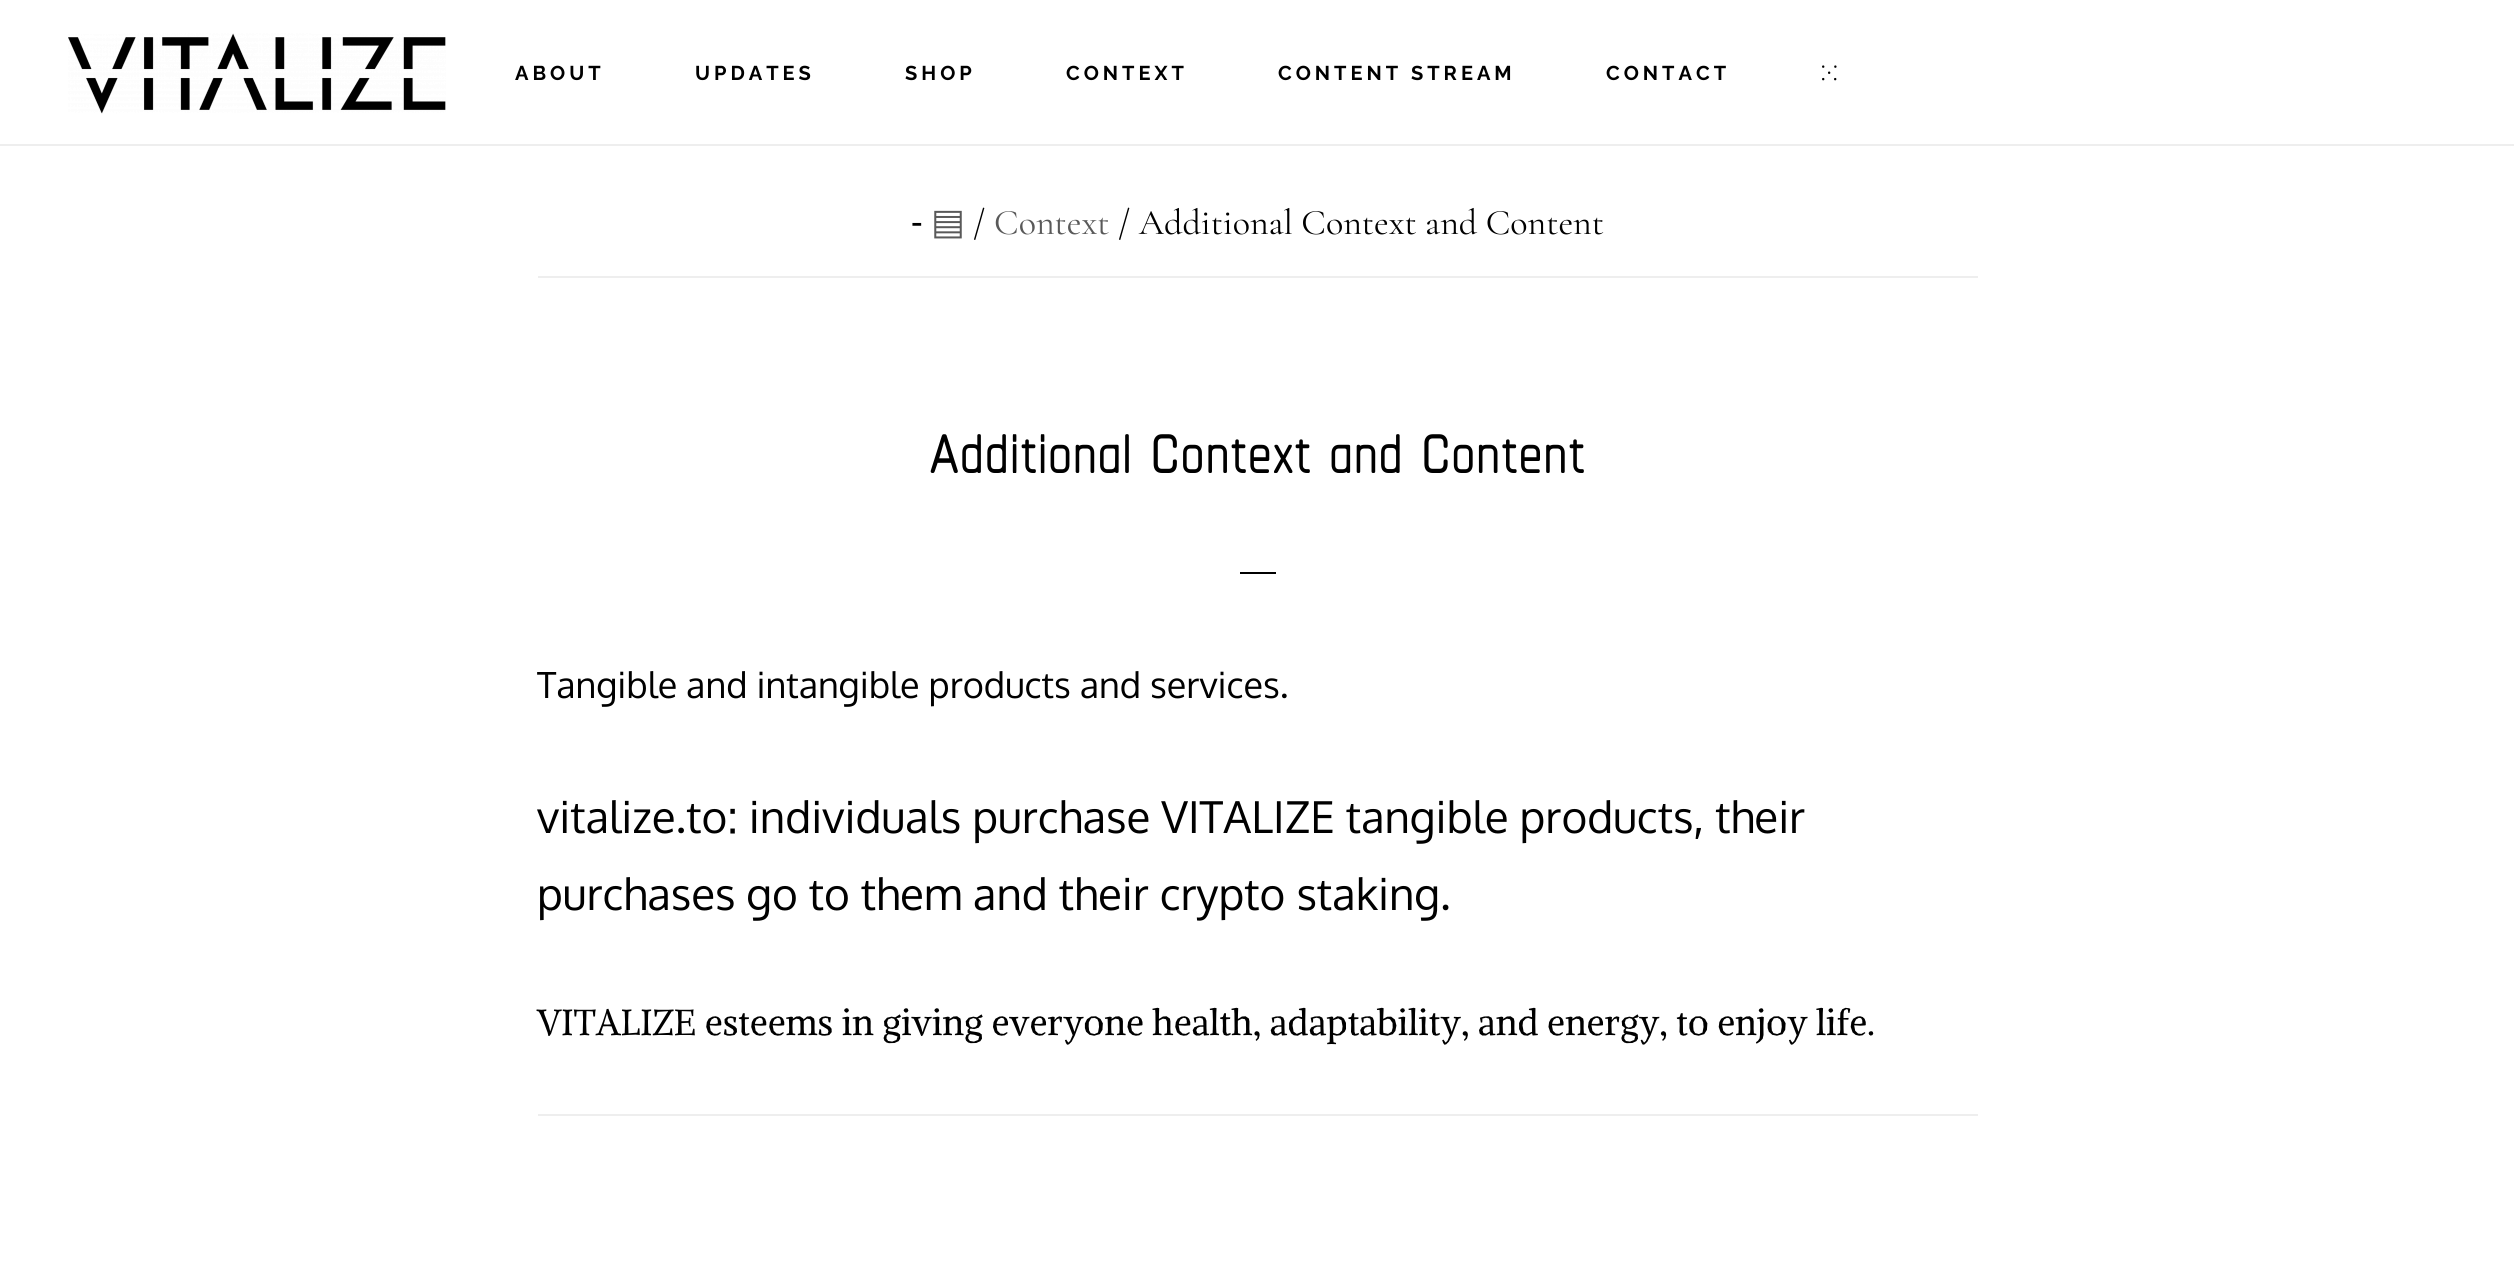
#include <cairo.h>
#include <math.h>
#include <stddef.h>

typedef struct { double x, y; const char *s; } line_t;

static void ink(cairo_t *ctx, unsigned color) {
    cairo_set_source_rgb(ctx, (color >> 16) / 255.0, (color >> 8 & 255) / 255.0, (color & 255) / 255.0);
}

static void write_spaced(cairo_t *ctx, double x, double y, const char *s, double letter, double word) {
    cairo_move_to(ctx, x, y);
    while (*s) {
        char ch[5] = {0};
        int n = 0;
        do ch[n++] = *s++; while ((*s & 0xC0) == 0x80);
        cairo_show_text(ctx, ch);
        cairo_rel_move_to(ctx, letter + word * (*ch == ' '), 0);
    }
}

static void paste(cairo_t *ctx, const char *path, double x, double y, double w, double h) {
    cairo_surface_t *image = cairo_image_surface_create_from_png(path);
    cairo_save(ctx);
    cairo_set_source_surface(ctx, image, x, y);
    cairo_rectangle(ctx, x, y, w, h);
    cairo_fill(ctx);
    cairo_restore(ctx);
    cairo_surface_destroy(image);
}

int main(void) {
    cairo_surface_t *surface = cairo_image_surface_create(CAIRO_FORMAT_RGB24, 2514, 1272);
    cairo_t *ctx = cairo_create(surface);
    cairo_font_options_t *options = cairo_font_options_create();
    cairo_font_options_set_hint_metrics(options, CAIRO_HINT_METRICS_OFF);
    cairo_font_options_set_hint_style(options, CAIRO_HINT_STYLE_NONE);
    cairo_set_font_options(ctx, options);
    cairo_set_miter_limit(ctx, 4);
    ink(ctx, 0xFFFFFF);
    cairo_paint(ctx);
    ink(ctx, 0xEEEEEE);
    cairo_rectangle(ctx, 0, 144, 2514, 2);
    cairo_fill(ctx);
    paste(ctx, "media/1.png", 68, 33, 378, 81);
    cairo_select_font_face(ctx, "Raleway Thin", CAIRO_FONT_SLANT_NORMAL, CAIRO_FONT_WEIGHT_NORMAL);
    cairo_set_font_size(ctx, 20);
    ink(ctx, 0x000000);
    {
        static const line_t items[] = {
            {515, 80, "ABOUT"},
            {695, 80, "UPDATES"},
            {905, 80, "SHOP"},
            {1066, 80, "CONTEXT"},
            {1278, 80, "CONTENT STREAM"},
            {1606, 80, "CONTACT"},
        };
        for (size_t i = 0; i < sizeof items / sizeof *items; i++) {
            write_spaced(ctx, items[i].x, items[i].y, items[i].s, 4, 0);
        }
    }
    cairo_select_font_face(ctx, "Noto Sans", CAIRO_FONT_SLANT_NORMAL, CAIRO_FONT_WEIGHT_NORMAL);
    write_spaced(ctx, 1821, 80, "⁙", 4, 0);
    ink(ctx, 0xEEEEEE);
    cairo_rectangle(ctx, 538, 276, 1440, 2);
    cairo_fill(ctx);
    cairo_set_font_size(ctx, 36);
    ink(ctx, 0x000000);
    cairo_move_to(ctx, 911, 234);
    cairo_show_text(ctx, "⁃");
    cairo_select_font_face(ctx, "DejaVu Sans", CAIRO_FONT_SLANT_NORMAL, CAIRO_FONT_WEIGHT_NORMAL);
    ink(ctx, 0x595959);
    cairo_move_to(ctx, 931, 234);
    cairo_show_text(ctx, "▤");
    cairo_select_font_face(ctx, "Cormorant Garamond", CAIRO_FONT_SLANT_NORMAL, CAIRO_FONT_WEIGHT_NORMAL);
    ink(ctx, 0x000000);
    cairo_move_to(ctx, 973, 234);
    cairo_show_text(ctx, "/");
    ink(ctx, 0x595959);
    cairo_move_to(ctx, 994, 234);
    cairo_show_text(ctx, "Context");
    ink(ctx, 0x000000);
    cairo_move_to(ctx, 1118, 234);
    cairo_show_text(ctx, "/ Additional Context and Content");
    ink(ctx, 0xEEEEEE);
    cairo_rectangle(ctx, 538, 1114, 1440, 2);
    cairo_fill(ctx);
    cairo_select_font_face(ctx, "Chathura", CAIRO_FONT_SLANT_NORMAL, CAIRO_FONT_WEIGHT_BOLD);
    cairo_set_font_size(ctx, 96);
    ink(ctx, 0x000000);
    cairo_move_to(ctx, 929, 473);
    cairo_show_text(ctx, "Additional Context and Content");
    cairo_rectangle(ctx, 1240, 572, 36, 2);
    cairo_fill(ctx);
    cairo_select_font_face(ctx, "Oxygen", CAIRO_FONT_SLANT_NORMAL, CAIRO_FONT_WEIGHT_NORMAL);
    cairo_set_font_size(ctx, 36);
    cairo_move_to(ctx, 537, 698);
    cairo_show_text(ctx, "Tangible and intangible products and services.");
    cairo_set_font_size(ctx, 44);
    cairo_move_to(ctx, 537, 833);
    cairo_show_text(ctx, "vitalize.to: individuals purchase VITALIZE tangible products, their");
    cairo_move_to(ctx, 537, 910);
    cairo_show_text(ctx, "purchases go to them and their crypto staking.");
    cairo_select_font_face(ctx, "Alike Angular", CAIRO_FONT_SLANT_NORMAL, CAIRO_FONT_WEIGHT_NORMAL);
    cairo_set_font_size(ctx, 36);
    cairo_move_to(ctx, 537, 1035);
    cairo_show_text(ctx, "VITALIZE esteems in giving everyone health, adaptability, and energy, to enjoy life.");
    cairo_surface_write_to_png(surface, "image.png");
    cairo_font_options_destroy(options);
    cairo_destroy(ctx);
    cairo_surface_destroy(surface);
    return 0;
}
